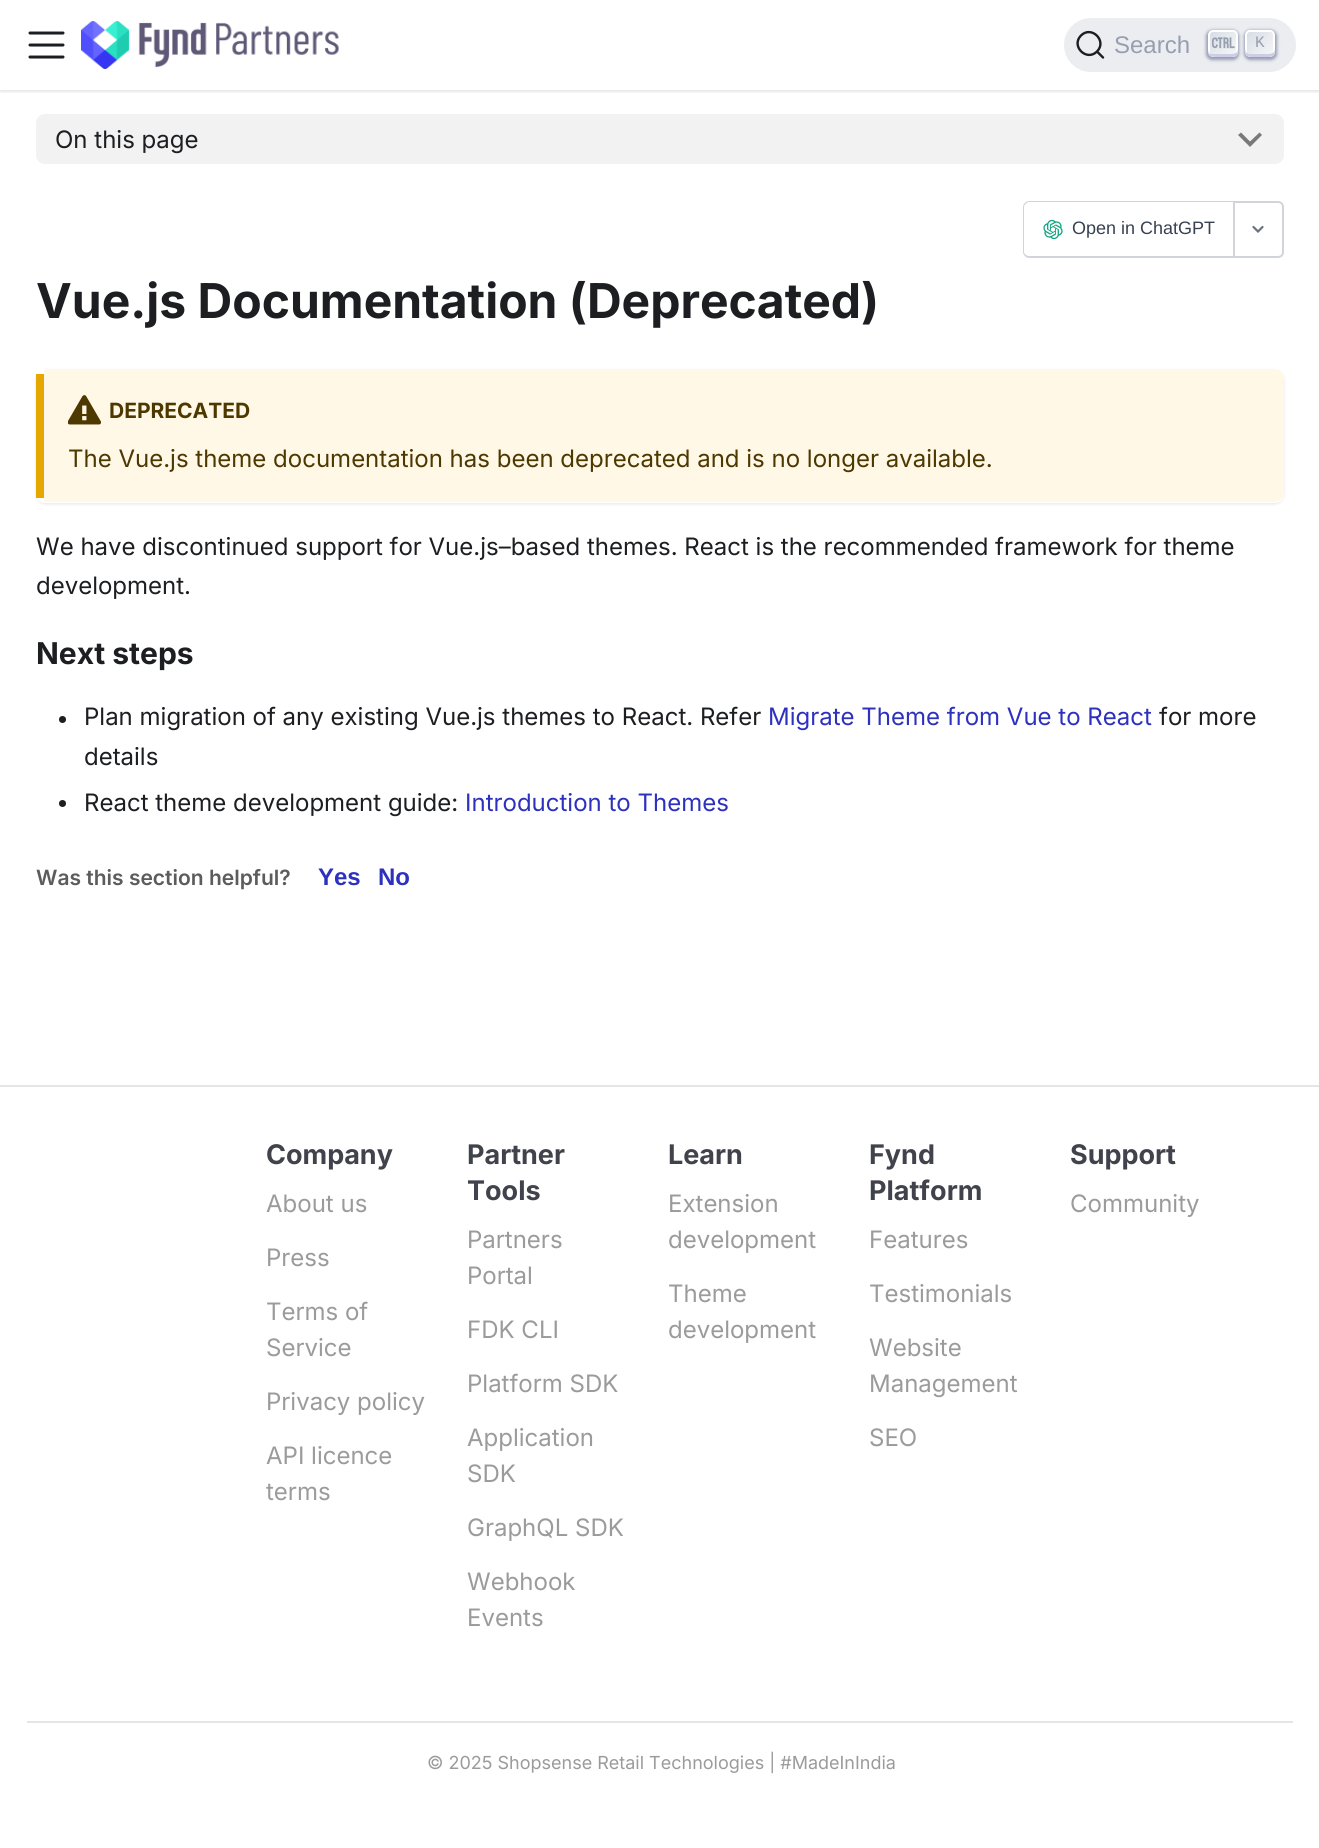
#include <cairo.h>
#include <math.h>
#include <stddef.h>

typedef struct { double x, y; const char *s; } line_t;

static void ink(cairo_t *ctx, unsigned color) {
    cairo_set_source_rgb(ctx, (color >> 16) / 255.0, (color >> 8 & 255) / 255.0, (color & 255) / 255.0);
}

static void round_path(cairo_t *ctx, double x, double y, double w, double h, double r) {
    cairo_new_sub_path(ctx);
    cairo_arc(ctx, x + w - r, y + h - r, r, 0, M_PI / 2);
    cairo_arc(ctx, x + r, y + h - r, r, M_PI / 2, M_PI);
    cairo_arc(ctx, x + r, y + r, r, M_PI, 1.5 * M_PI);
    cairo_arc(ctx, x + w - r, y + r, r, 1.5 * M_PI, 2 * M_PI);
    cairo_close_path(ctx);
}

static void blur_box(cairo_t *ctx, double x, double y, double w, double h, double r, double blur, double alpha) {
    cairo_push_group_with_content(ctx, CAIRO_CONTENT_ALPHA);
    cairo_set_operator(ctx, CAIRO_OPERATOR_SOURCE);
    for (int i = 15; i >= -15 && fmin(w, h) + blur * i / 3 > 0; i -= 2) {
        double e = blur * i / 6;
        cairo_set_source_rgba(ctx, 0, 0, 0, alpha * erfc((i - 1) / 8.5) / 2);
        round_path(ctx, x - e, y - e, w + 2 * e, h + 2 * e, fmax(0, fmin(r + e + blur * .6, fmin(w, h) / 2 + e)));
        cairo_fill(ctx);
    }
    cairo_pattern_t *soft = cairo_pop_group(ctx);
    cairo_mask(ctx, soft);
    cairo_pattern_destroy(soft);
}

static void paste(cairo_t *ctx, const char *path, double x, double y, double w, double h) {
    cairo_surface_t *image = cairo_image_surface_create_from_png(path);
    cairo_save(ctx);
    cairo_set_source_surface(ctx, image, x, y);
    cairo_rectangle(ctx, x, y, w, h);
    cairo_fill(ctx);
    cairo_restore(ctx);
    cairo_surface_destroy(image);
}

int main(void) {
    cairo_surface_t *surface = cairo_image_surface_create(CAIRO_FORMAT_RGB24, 1319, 1848);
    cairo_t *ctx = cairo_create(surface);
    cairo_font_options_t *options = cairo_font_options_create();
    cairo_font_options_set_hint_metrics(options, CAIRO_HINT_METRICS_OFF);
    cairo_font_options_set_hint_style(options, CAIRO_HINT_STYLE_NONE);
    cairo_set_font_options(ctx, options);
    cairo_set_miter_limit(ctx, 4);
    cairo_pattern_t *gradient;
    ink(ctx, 0xFFFFFF);
    cairo_paint(ctx);
    cairo_save(ctx);
    cairo_rectangle(ctx, 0, 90, 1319, 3);
    cairo_clip(ctx);
    ink(ctx, 0x000000);
    blur_box(ctx, 0, 2, 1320, 90, 0, 1.5, 0.1);
    cairo_restore(ctx);
    cairo_new_path(ctx);
    cairo_move_to(ctx, 30, 33);
    cairo_line_to(ctx, 63, 33);
    cairo_move_to(ctx, 30, 45);
    cairo_line_to(ctx, 63, 45);
    cairo_move_to(ctx, 30, 57);
    cairo_line_to(ctx, 63, 57);
    ink(ctx, 0x1C1E21);
    cairo_set_line_width(ctx, 3);
    cairo_set_line_cap(ctx, CAIRO_LINE_CAP_ROUND);
    cairo_stroke(ctx);
    paste(ctx, "media/1.png", 81, 21, 258, 48);
    ink(ctx, 0xEBEDF0);
    round_path(ctx, 1064, 18, 232, 54, 27);
    cairo_fill(ctx);
    cairo_new_path(ctx);
    cairo_move_to(ctx, 1097, 51.5);
    cairo_line_to(ctx, 1103, 57.5);
    cairo_line_to(ctx, 1097, 51.5);
    cairo_curve_to(ctx, 1086.5, 62, 1070.5, 46, 1081, 35.5);
    cairo_curve_to(ctx, 1091.5, 25, 1107.5, 41, 1097, 51.5);
    cairo_close_path(ctx);
    ink(ctx, 0x1C1E21);
    cairo_set_line_width(ctx, 2.4);
    cairo_set_line_join(ctx, CAIRO_LINE_JOIN_ROUND);
    cairo_stroke(ctx);
    cairo_select_font_face(ctx, "Liberation Sans", CAIRO_FONT_SLANT_NORMAL, CAIRO_FONT_WEIGHT_NORMAL);
    cairo_set_font_size(ctx, 24);
    ink(ctx, 0x969FAF);
    cairo_move_to(ctx, 1114, 53);
    cairo_show_text(ctx, "Search");
    ink(ctx, 0x1E235A);
    blur_box(ctx, 1206, 30, 33, 30, 6, 1.5, 0.4);
    gradient = cairo_pattern_create_linear(1208, 29, 1237, 58);
    cairo_pattern_add_color_stop_rgba(gradient, 0, 0.835, 0.859, 0.894, 1);
    cairo_pattern_add_color_stop_rgba(gradient, 1, 0.973, 0.973, 0.973, 1);
    cairo_set_source(ctx, gradient);
    cairo_pattern_destroy(gradient);
    round_path(ctx, 1209, 31, 28, 25, 4);
    cairo_fill_preserve(ctx);
    ink(ctx, 0xFFFFFF);
    cairo_set_line_width(ctx, 2);
    cairo_set_line_cap(ctx, CAIRO_LINE_CAP_BUTT);
    cairo_set_line_join(ctx, CAIRO_LINE_JOIN_MITER);
    cairo_stroke(ctx);
    ink(ctx, 0xCDCDE6);
    cairo_new_path(ctx);
    cairo_move_to(ctx, 1238, 49.5);
    cairo_curve_to(ctx, 1237.5, 52.5, 1235.5, 54, 1230, 54);
    cairo_line_to(ctx, 1212, 54);
    cairo_curve_to(ctx, 1209.5, 54, 1208.5, 52.5, 1208, 50);
    cairo_curve_to(ctx, 1208, 56.5, 1210.5, 57, 1216.5, 57);
    cairo_line_to(ctx, 1229.5, 57);
    cairo_curve_to(ctx, 1236, 57, 1238, 56.5, 1238, 49.5);
    cairo_close_path(ctx);
    cairo_fill(ctx);
    paste(ctx, "media/2.png", 1212, 37, 23, 12);
    ink(ctx, 0x1E235A);
    blur_box(ctx, 1244, 30, 33, 30, 6, 1.5, 0.4);
    gradient = cairo_pattern_create_linear(1246, 29, 1274, 58);
    cairo_pattern_add_color_stop_rgba(gradient, 0, 0.835, 0.859, 0.894, 1);
    cairo_pattern_add_color_stop_rgba(gradient, 1, 0.973, 0.973, 0.973, 1);
    cairo_set_source(ctx, gradient);
    cairo_pattern_destroy(gradient);
    round_path(ctx, 1246, 31, 28, 25, 4);
    cairo_fill_preserve(ctx);
    ink(ctx, 0xFFFFFF);
    cairo_stroke(ctx);
    ink(ctx, 0xCDCDE6);
    cairo_new_path(ctx);
    cairo_move_to(ctx, 1275, 49.5);
    cairo_curve_to(ctx, 1274.5, 52.5, 1272.5, 54, 1267, 54);
    cairo_line_to(ctx, 1250, 54);
    cairo_curve_to(ctx, 1247, 54, 1245.5, 52, 1245, 49.5);
    cairo_curve_to(ctx, 1245, 56, 1246.5, 57, 1253.5, 57);
    cairo_line_to(ctx, 1266.5, 57);
    cairo_curve_to(ctx, 1273, 57, 1275, 56.5, 1275, 49.5);
    cairo_close_path(ctx);
    cairo_fill(ctx);
    cairo_select_font_face(ctx, "Liberation Mono", CAIRO_FONT_SLANT_NORMAL, CAIRO_FONT_WEIGHT_NORMAL);
    cairo_set_font_size(ctx, 16);
    ink(ctx, 0x969FAF);
    cairo_move_to(ctx, 1255, 47);
    cairo_show_text(ctx, "K");
    ink(ctx, 0xF2F2F2);
    round_path(ctx, 36, 114, 1248, 50, 9);
    cairo_fill(ctx);
    cairo_select_font_face(ctx, "Inter", CAIRO_FONT_SLANT_NORMAL, CAIRO_FONT_WEIGHT_NORMAL);
    cairo_set_font_size(ctx, 24);
    ink(ctx, 0x1C1E21);
    cairo_move_to(ctx, 55, 148);
    cairo_show_text(ctx, "On this page");
    ink(ctx, 0x797979);
    cairo_new_path(ctx);
    cairo_move_to(ctx, 1259.5, 132.5);
    cairo_line_to(ctx, 1250, 141.5);
    cairo_line_to(ctx, 1241, 132.5);
    cairo_line_to(ctx, 1238, 135);
    cairo_line_to(ctx, 1250, 147);
    cairo_line_to(ctx, 1262, 135);
    cairo_close_path(ctx);
    cairo_fill(ctx);
    ink(ctx, 0xD1D5DB);
    cairo_set_fill_rule(ctx, CAIRO_FILL_RULE_EVEN_ODD);
    cairo_new_path(ctx);
    cairo_move_to(ctx, 1029, 201);
    cairo_line_to(ctx, 1233, 201);
    cairo_line_to(ctx, 1233, 258);
    cairo_line_to(ctx, 1029, 258);
    cairo_curve_to(ctx, 1026, 258, 1023, 255, 1023, 252);
    cairo_line_to(ctx, 1023, 207);
    cairo_curve_to(ctx, 1023, 204, 1026, 201, 1029, 201);
    cairo_close_path(ctx);
    cairo_move_to(ctx, 1029, 202);
    cairo_line_to(ctx, 1233, 202);
    cairo_line_to(ctx, 1233, 256);
    cairo_line_to(ctx, 1029, 256);
    cairo_curve_to(ctx, 1027, 256, 1024, 254, 1024, 252);
    cairo_line_to(ctx, 1024, 207);
    cairo_curve_to(ctx, 1024, 205, 1027, 202, 1029, 202);
    cairo_close_path(ctx);
    cairo_fill(ctx);
    paste(ctx, "media/3.png", 1043, 219, 20, 21);
    cairo_select_font_face(ctx, "Liberation Sans", CAIRO_FONT_SLANT_NORMAL, CAIRO_FONT_WEIGHT_NORMAL);
    cairo_set_font_size(ctx, 18);
    ink(ctx, 0x374151);
    cairo_move_to(ctx, 1072, 234);
    cairo_show_text(ctx, "Open in ChatGPT");
    cairo_new_path(ctx);
    cairo_move_to(ctx, 1234, 202);
    cairo_line_to(ctx, 1278, 202);
    cairo_curve_to(ctx, 1281, 202, 1283, 204, 1283, 207);
    cairo_line_to(ctx, 1283, 252);
    cairo_curve_to(ctx, 1283, 255, 1281, 257, 1278, 257);
    cairo_line_to(ctx, 1234, 257);
    cairo_close_path(ctx);
    ink(ctx, 0xD1D5DB);
    cairo_stroke(ctx);
    cairo_new_path(ctx);
    cairo_move_to(ctx, 1262.5, 227);
    cairo_line_to(ctx, 1258, 231.5);
    cairo_line_to(ctx, 1253.5, 227);
    ink(ctx, 0x6B7280);
    cairo_set_line_width(ctx, 2.2);
    cairo_set_line_cap(ctx, CAIRO_LINE_CAP_ROUND);
    cairo_stroke(ctx);
    cairo_select_font_face(ctx, "Inter", CAIRO_FONT_SLANT_NORMAL, CAIRO_FONT_WEIGHT_BOLD);
    cairo_set_font_size(ctx, 48);
    ink(ctx, 0x1C1E21);
    cairo_move_to(ctx, 36, 318);
    cairo_show_text(ctx, "Vue.js Documentation (Deprecated)");
    cairo_save(ctx);
    cairo_new_path(ctx);
    cairo_move_to(ctx, 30, 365);
    cairo_line_to(ctx, 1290, 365);
    cairo_line_to(ctx, 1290, 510);
    cairo_line_to(ctx, 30, 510);
    cairo_close_path(ctx);
    cairo_move_to(ctx, 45, 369);
    cairo_line_to(ctx, 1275, 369);
    cairo_curve_to(ctx, 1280, 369, 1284, 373, 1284, 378);
    cairo_line_to(ctx, 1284, 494);
    cairo_curve_to(ctx, 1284, 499, 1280, 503, 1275, 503);
    cairo_line_to(ctx, 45, 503);
    cairo_curve_to(ctx, 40, 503, 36, 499, 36, 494);
    cairo_line_to(ctx, 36, 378);
    cairo_curve_to(ctx, 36, 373, 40, 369, 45, 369);
    cairo_close_path(ctx);
    cairo_clip(ctx);
    ink(ctx, 0x000000);
    blur_box(ctx, 36, 371, 1248, 133, 9, 1.5, 0.1);
    cairo_restore(ctx);
    ink(ctx, 0xFFF8E6);
    cairo_set_fill_rule(ctx, CAIRO_FILL_RULE_WINDING);
    cairo_new_path(ctx);
    cairo_move_to(ctx, 46, 369);
    cairo_line_to(ctx, 1274, 369);
    cairo_curve_to(ctx, 1280, 369, 1284, 373, 1284, 379);
    cairo_line_to(ctx, 1284, 493);
    cairo_curve_to(ctx, 1284, 498, 1280, 502, 1274, 502);
    cairo_line_to(ctx, 46, 502);
    cairo_curve_to(ctx, 44, 502, 44, 498, 44, 493);
    cairo_line_to(ctx, 44, 379);
    cairo_curve_to(ctx, 44, 373, 44, 369, 46, 369);
    cairo_close_path(ctx);
    cairo_fill(ctx);
    ink(ctx, 0xE6A700);
    cairo_rectangle(ctx, 36, 374, 8, 124);
    cairo_fill(ctx);
    paste(ctx, "media/4.png", 68, 395, 33, 30);
    cairo_set_font_size(ctx, 21);
    ink(ctx, 0x4D3800);
    cairo_move_to(ctx, 109, 418);
    cairo_show_text(ctx, "DEPRECATED");
    cairo_select_font_face(ctx, "Inter", CAIRO_FONT_SLANT_NORMAL, CAIRO_FONT_WEIGHT_NORMAL);
    cairo_set_font_size(ctx, 24);
    cairo_move_to(ctx, 68, 467);
    cairo_show_text(ctx, "The Vue.js theme documentation has been deprecated and is no longer available.");
    ink(ctx, 0x1C1E21);
    cairo_move_to(ctx, 36, 555);
    cairo_show_text(ctx, "We have discontinued support for Vue.js–based themes. React is the recommended framework for theme");
    cairo_move_to(ctx, 36, 594);
    cairo_show_text(ctx, "development.");
    cairo_select_font_face(ctx, "Inter", CAIRO_FONT_SLANT_NORMAL, CAIRO_FONT_WEIGHT_BOLD);
    cairo_set_font_size(ctx, 30);
    cairo_move_to(ctx, 36, 664);
    cairo_show_text(ctx, "Next steps");
    cairo_new_path(ctx);
    cairo_arc(ctx, 62.5, 719.5, 3.5, 0, 2 * M_PI);
    cairo_fill(ctx);
    cairo_select_font_face(ctx, "Inter", CAIRO_FONT_SLANT_NORMAL, CAIRO_FONT_WEIGHT_NORMAL);
    cairo_set_font_size(ctx, 24);
    cairo_move_to(ctx, 84, 725);
    cairo_show_text(ctx, "Plan migration of any existing Vue.js themes to React. Refer");
    ink(ctx, 0x2E31BE);
    cairo_move_to(ctx, 768, 725);
    cairo_show_text(ctx, "Migrate Theme from Vue to React");
    ink(ctx, 0x1C1E21);
    cairo_move_to(ctx, 1159, 725);
    cairo_show_text(ctx, "for more");
    cairo_move_to(ctx, 84, 765);
    cairo_show_text(ctx, "details");
    cairo_new_path(ctx);
    cairo_arc(ctx, 62.5, 803.5, 3.5, 0, 2 * M_PI);
    cairo_fill(ctx);
    cairo_move_to(ctx, 84, 811);
    cairo_show_text(ctx, "React theme development guide:");
    ink(ctx, 0x2E31BE);
    cairo_move_to(ctx, 465, 811);
    cairo_show_text(ctx, "Introduction to Themes");
    cairo_select_font_face(ctx, "Inter SemiBold", CAIRO_FONT_SLANT_NORMAL, CAIRO_FONT_WEIGHT_NORMAL);
    cairo_set_font_size(ctx, 21);
    ink(ctx, 0x5C5C5C);
    cairo_move_to(ctx, 36, 885);
    cairo_show_text(ctx, "Was this section helpful?");
    cairo_select_font_face(ctx, "Liberation Sans", CAIRO_FONT_SLANT_NORMAL, CAIRO_FONT_WEIGHT_BOLD);
    cairo_set_font_size(ctx, 24);
    ink(ctx, 0x2E31BE);
    cairo_move_to(ctx, 318, 885);
    cairo_show_text(ctx, "Yes");
    cairo_move_to(ctx, 378, 885);
    cairo_show_text(ctx, "No");
    ink(ctx, 0xE4E5E6);
    cairo_rectangle(ctx, 0, 1085, 1319, 2);
    cairo_fill(ctx);
    cairo_select_font_face(ctx, "Inter", CAIRO_FONT_SLANT_NORMAL, CAIRO_FONT_WEIGHT_BOLD);
    cairo_set_font_size(ctx, 27);
    ink(ctx, 0x41434C);
    cairo_move_to(ctx, 266, 1164);
    cairo_show_text(ctx, "Company");
    cairo_select_font_face(ctx, "Inter", CAIRO_FONT_SLANT_NORMAL, CAIRO_FONT_WEIGHT_NORMAL);
    cairo_set_font_size(ctx, 24);
    ink(ctx, 0x9B9B9B);
    {
        static const line_t items[] = {
            {266, 1212, "About us"},
            {266, 1266, "Press"},
            {266, 1320, "Terms of"},
            {266, 1356, "Service"},
            {266, 1410, "Privacy policy"},
            {266, 1464, "API licence"},
            {266, 1500, "terms"},
        };
        for (size_t i = 0; i < sizeof items / sizeof *items; i++) {
            cairo_move_to(ctx, items[i].x, items[i].y);
            cairo_show_text(ctx, items[i].s);
        }
    }
    cairo_select_font_face(ctx, "Inter", CAIRO_FONT_SLANT_NORMAL, CAIRO_FONT_WEIGHT_BOLD);
    cairo_set_font_size(ctx, 27);
    ink(ctx, 0x41434C);
    cairo_move_to(ctx, 467, 1164);
    cairo_show_text(ctx, "Partner");
    cairo_move_to(ctx, 467, 1200);
    cairo_show_text(ctx, "Tools");
    cairo_select_font_face(ctx, "Inter", CAIRO_FONT_SLANT_NORMAL, CAIRO_FONT_WEIGHT_NORMAL);
    cairo_set_font_size(ctx, 24);
    ink(ctx, 0x9B9B9B);
    {
        static const line_t items[] = {
            {467, 1248, "Partners"},
            {467, 1284, "Portal"},
            {467, 1338, "FDK CLI"},
            {467, 1392, "Platform SDK"},
            {467, 1446, "Application"},
            {467, 1482, "SDK"},
            {467, 1536, "GraphQL SDK"},
            {467, 1590, "Webhook"},
            {467, 1626, "Events"},
        };
        for (size_t i = 0; i < sizeof items / sizeof *items; i++) {
            cairo_move_to(ctx, items[i].x, items[i].y);
            cairo_show_text(ctx, items[i].s);
        }
    }
    cairo_select_font_face(ctx, "Inter", CAIRO_FONT_SLANT_NORMAL, CAIRO_FONT_WEIGHT_BOLD);
    cairo_set_font_size(ctx, 27);
    ink(ctx, 0x41434C);
    cairo_move_to(ctx, 668, 1164);
    cairo_show_text(ctx, "Learn");
    cairo_select_font_face(ctx, "Inter", CAIRO_FONT_SLANT_NORMAL, CAIRO_FONT_WEIGHT_NORMAL);
    cairo_set_font_size(ctx, 24);
    ink(ctx, 0x9B9B9B);
    {
        static const line_t items[] = {
            {668, 1212, "Extension"},
            {668, 1248, "development"},
            {668, 1302, "Theme"},
            {668, 1338, "development"},
        };
        for (size_t i = 0; i < sizeof items / sizeof *items; i++) {
            cairo_move_to(ctx, items[i].x, items[i].y);
            cairo_show_text(ctx, items[i].s);
        }
    }
    cairo_select_font_face(ctx, "Inter", CAIRO_FONT_SLANT_NORMAL, CAIRO_FONT_WEIGHT_BOLD);
    cairo_set_font_size(ctx, 27);
    ink(ctx, 0x41434C);
    cairo_move_to(ctx, 869, 1164);
    cairo_show_text(ctx, "Fynd");
    cairo_move_to(ctx, 869, 1200);
    cairo_show_text(ctx, "Platform");
    cairo_select_font_face(ctx, "Inter", CAIRO_FONT_SLANT_NORMAL, CAIRO_FONT_WEIGHT_NORMAL);
    cairo_set_font_size(ctx, 24);
    ink(ctx, 0x9B9B9B);
    {
        static const line_t items[] = {
            {869, 1248, "Features"},
            {869, 1302, "Testimonials"},
            {869, 1356, "Website"},
            {869, 1392, "Management"},
            {869, 1446, "SEO"},
        };
        for (size_t i = 0; i < sizeof items / sizeof *items; i++) {
            cairo_move_to(ctx, items[i].x, items[i].y);
            cairo_show_text(ctx, items[i].s);
        }
    }
    cairo_select_font_face(ctx, "Inter", CAIRO_FONT_SLANT_NORMAL, CAIRO_FONT_WEIGHT_BOLD);
    cairo_set_font_size(ctx, 27);
    ink(ctx, 0x41434C);
    cairo_move_to(ctx, 1070, 1164);
    cairo_show_text(ctx, "Support");
    cairo_select_font_face(ctx, "Inter", CAIRO_FONT_SLANT_NORMAL, CAIRO_FONT_WEIGHT_NORMAL);
    cairo_set_font_size(ctx, 24);
    ink(ctx, 0x9B9B9B);
    cairo_move_to(ctx, 1070, 1212);
    cairo_show_text(ctx, "Community");
    ink(ctx, 0xE4E5E6);
    cairo_rectangle(ctx, 27, 1721, 1266, 2);
    cairo_fill(ctx);
    cairo_set_font_size(ctx, 18);
    ink(ctx, 0x9B9B9B);
    cairo_move_to(ctx, 427, 1769);
    cairo_show_text(ctx, "© 2025 Shopsense Retail Technologies | #MadeInIndia");
    cairo_surface_write_to_png(surface, "image.png");
    cairo_font_options_destroy(options);
    cairo_destroy(ctx);
    cairo_surface_destroy(surface);
    return 0;
}
